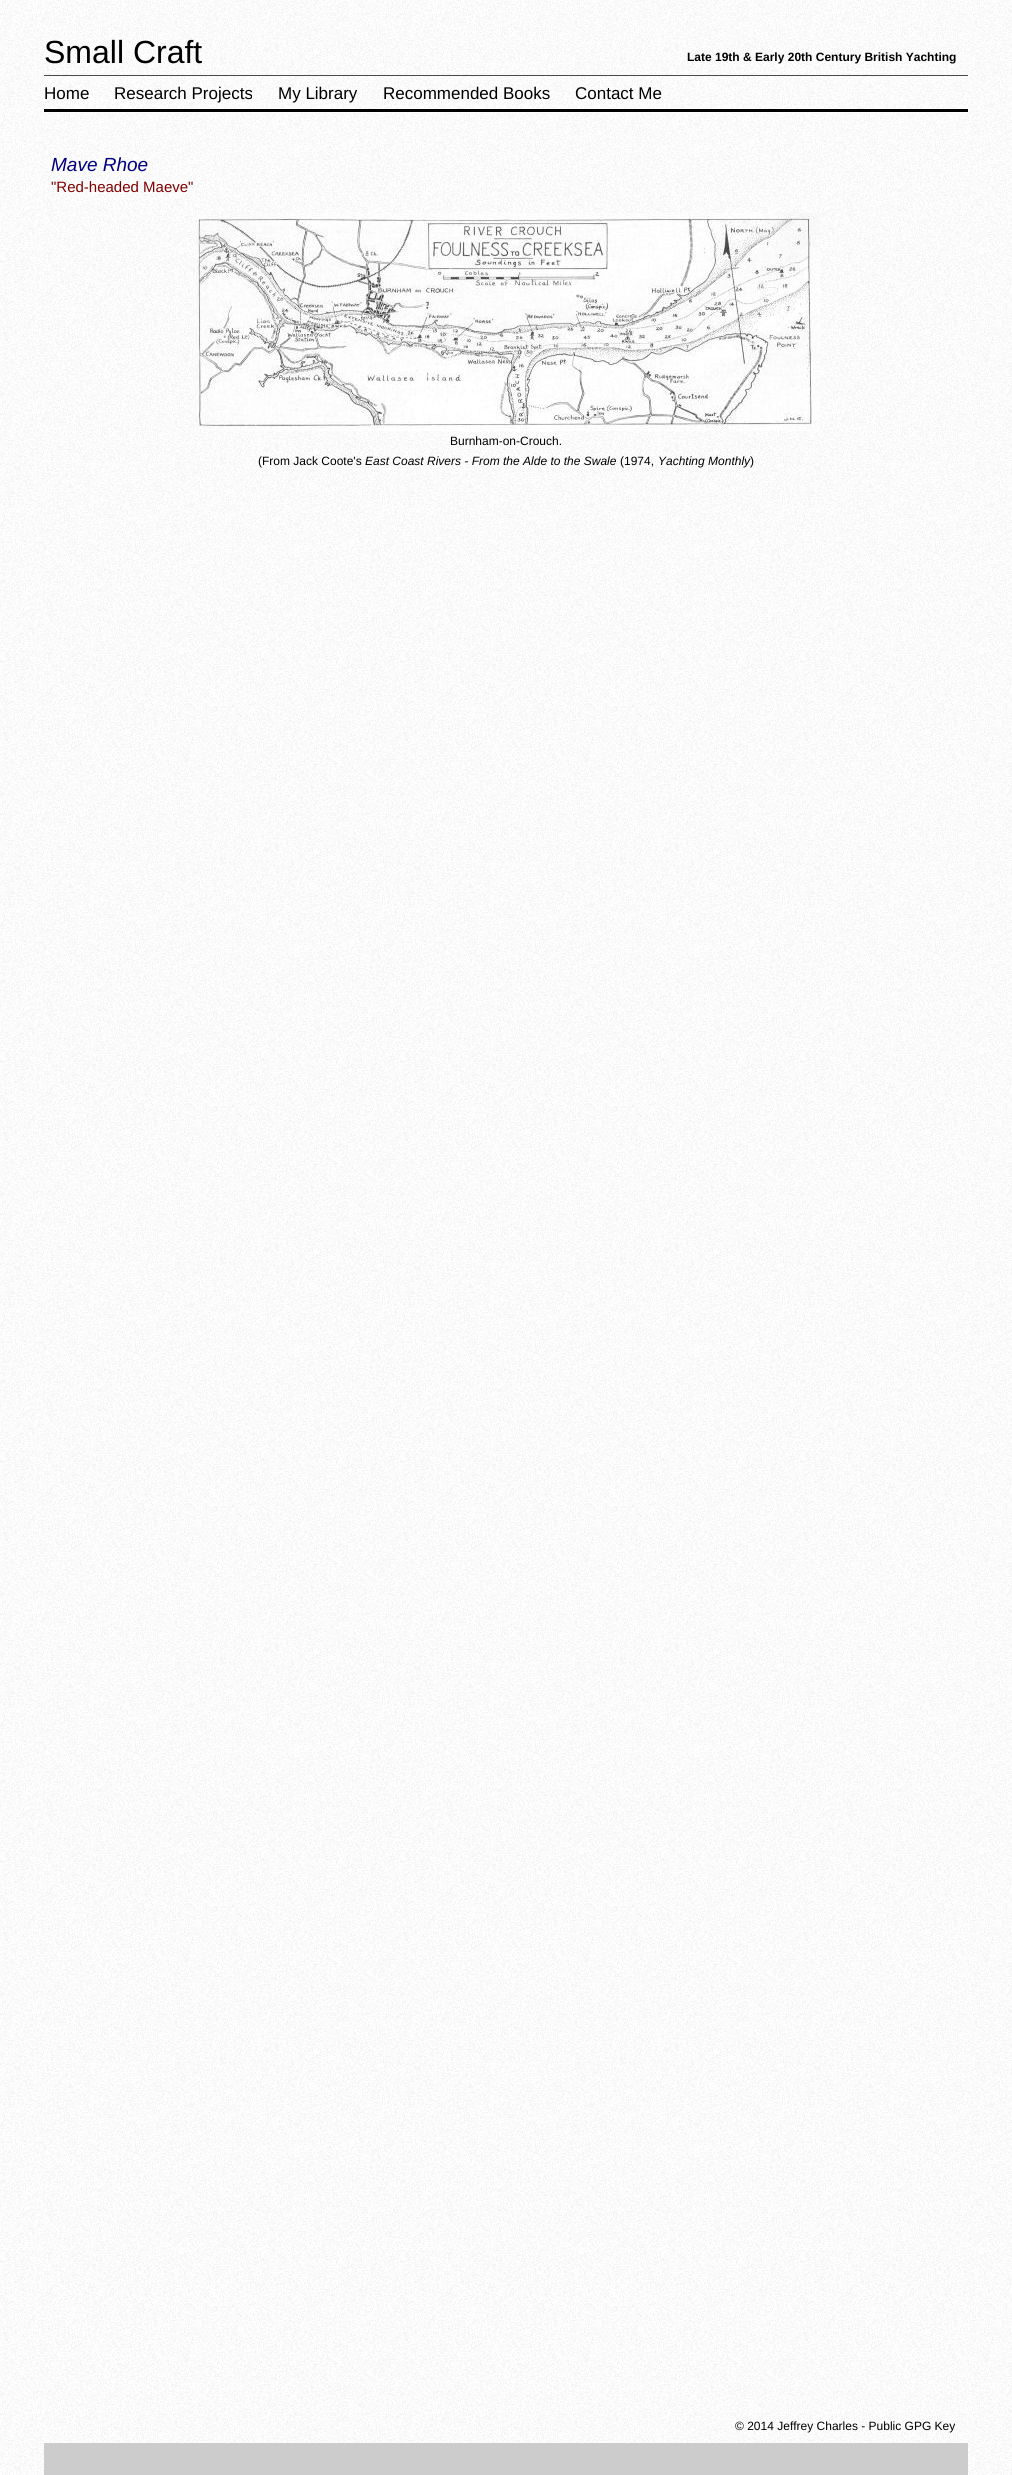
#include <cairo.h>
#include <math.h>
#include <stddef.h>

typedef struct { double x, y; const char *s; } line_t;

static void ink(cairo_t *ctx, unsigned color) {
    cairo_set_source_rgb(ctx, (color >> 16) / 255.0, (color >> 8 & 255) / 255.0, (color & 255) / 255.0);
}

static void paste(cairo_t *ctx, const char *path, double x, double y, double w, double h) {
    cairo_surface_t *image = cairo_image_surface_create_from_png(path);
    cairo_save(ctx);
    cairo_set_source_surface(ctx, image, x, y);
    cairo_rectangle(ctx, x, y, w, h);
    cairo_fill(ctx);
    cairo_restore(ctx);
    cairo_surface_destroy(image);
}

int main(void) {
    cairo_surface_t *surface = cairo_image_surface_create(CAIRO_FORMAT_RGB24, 1012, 2475);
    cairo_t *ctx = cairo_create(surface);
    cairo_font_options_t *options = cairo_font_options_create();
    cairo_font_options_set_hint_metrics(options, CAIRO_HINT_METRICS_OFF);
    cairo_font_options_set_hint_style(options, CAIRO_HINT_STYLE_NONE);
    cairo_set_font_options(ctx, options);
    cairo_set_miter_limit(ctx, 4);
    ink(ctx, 0xFFFFFF);
    cairo_paint(ctx);
    paste(ctx, "media/1.png", 0, 0, 1012, 2475);
    ink(ctx, 0xFFFFFF);
    cairo_rectangle(ctx, 44, 112, 924, 1);
    cairo_fill(ctx);
    cairo_select_font_face(ctx, "Liberation Sans", CAIRO_FONT_SLANT_NORMAL, CAIRO_FONT_WEIGHT_NORMAL);
    cairo_set_font_size(ctx, 32);
    ink(ctx, 0x000000);
    cairo_move_to(ctx, 44, 63);
    cairo_show_text(ctx, "Small Craft");
    cairo_select_font_face(ctx, "Liberation Sans", CAIRO_FONT_SLANT_NORMAL, CAIRO_FONT_WEIGHT_BOLD);
    cairo_set_font_size(ctx, 12);
    cairo_move_to(ctx, 687, 61);
    cairo_show_text(ctx, "Late 19th & Early 20th Century British Yachting");
    cairo_set_source_rgba(ctx, 0, 0, 0, 0.7);
    cairo_rectangle(ctx, 44, 75, 924, 1);
    cairo_fill(ctx);
    ink(ctx, 0x000000);
    cairo_rectangle(ctx, 44, 109, 924, 3);
    cairo_fill(ctx);
    cairo_select_font_face(ctx, "Liberation Sans", CAIRO_FONT_SLANT_NORMAL, CAIRO_FONT_WEIGHT_NORMAL);
    cairo_set_font_size(ctx, 17);
    {
        static const line_t items[] = {
            {44, 99, "Home"},
            {114, 99, "Research Projects"},
            {278, 99, "My Library"},
            {383, 99, "Recommended Books"},
            {575, 99, "Contact Me"},
        };
        for (size_t i = 0; i < sizeof items / sizeof *items; i++) {
            cairo_move_to(ctx, items[i].x, items[i].y);
            cairo_show_text(ctx, items[i].s);
        }
    }
    cairo_select_font_face(ctx, "Liberation Sans", CAIRO_FONT_SLANT_ITALIC, CAIRO_FONT_WEIGHT_NORMAL);
    cairo_set_font_size(ctx, 19);
    ink(ctx, 0x000080);
    cairo_move_to(ctx, 51, 171);
    cairo_show_text(ctx, "Mave Rhoe");
    cairo_select_font_face(ctx, "Liberation Sans", CAIRO_FONT_SLANT_NORMAL, CAIRO_FONT_WEIGHT_NORMAL);
    cairo_set_font_size(ctx, 15);
    ink(ctx, 0x800000);
    cairo_move_to(ctx, 51, 192);
    cairo_show_text(ctx, "\"Red-headed Maeve\"");
    paste(ctx, "media/2.png", 192, 213, 628, 218);
    cairo_set_font_size(ctx, 12);
    ink(ctx, 0x000000);
    cairo_move_to(ctx, 450, 445);
    cairo_show_text(ctx, "Burnham-on-Crouch.");
    cairo_move_to(ctx, 258, 465);
    cairo_show_text(ctx, "(From Jack Coote's");
    cairo_select_font_face(ctx, "Liberation Sans", CAIRO_FONT_SLANT_ITALIC, CAIRO_FONT_WEIGHT_NORMAL);
    cairo_move_to(ctx, 365, 465);
    cairo_show_text(ctx, "East Coast Rivers - From the Alde to the Swale");
    cairo_select_font_face(ctx, "Liberation Sans", CAIRO_FONT_SLANT_NORMAL, CAIRO_FONT_WEIGHT_NORMAL);
    cairo_move_to(ctx, 620, 465);
    cairo_show_text(ctx, "(1974,");
    cairo_select_font_face(ctx, "Liberation Sans", CAIRO_FONT_SLANT_ITALIC, CAIRO_FONT_WEIGHT_NORMAL);
    cairo_move_to(ctx, 658, 465);
    cairo_show_text(ctx, "Yachting Monthly");
    cairo_select_font_face(ctx, "Liberation Sans", CAIRO_FONT_SLANT_NORMAL, CAIRO_FONT_WEIGHT_NORMAL);
    cairo_move_to(ctx, 750, 465);
    cairo_show_text(ctx, ")");
    cairo_rectangle(ctx, 44.5, 2407.5, 923, 35);
    cairo_set_source_rgba(ctx, 1, 1, 1, 0.23);
    cairo_set_line_width(ctx, 1);
    cairo_stroke(ctx);
    ink(ctx, 0x000000);
    cairo_move_to(ctx, 735, 2430);
    cairo_show_text(ctx, "© 2014 Jeffrey Charles - Public GPG Key");
    ink(ctx, 0xCCCCCC);
    cairo_rectangle(ctx, 44, 2443, 924, 32);
    cairo_fill(ctx);
    cairo_surface_write_to_png(surface, "image.png");
    cairo_font_options_destroy(options);
    cairo_destroy(ctx);
    cairo_surface_destroy(surface);
    return 0;
}
